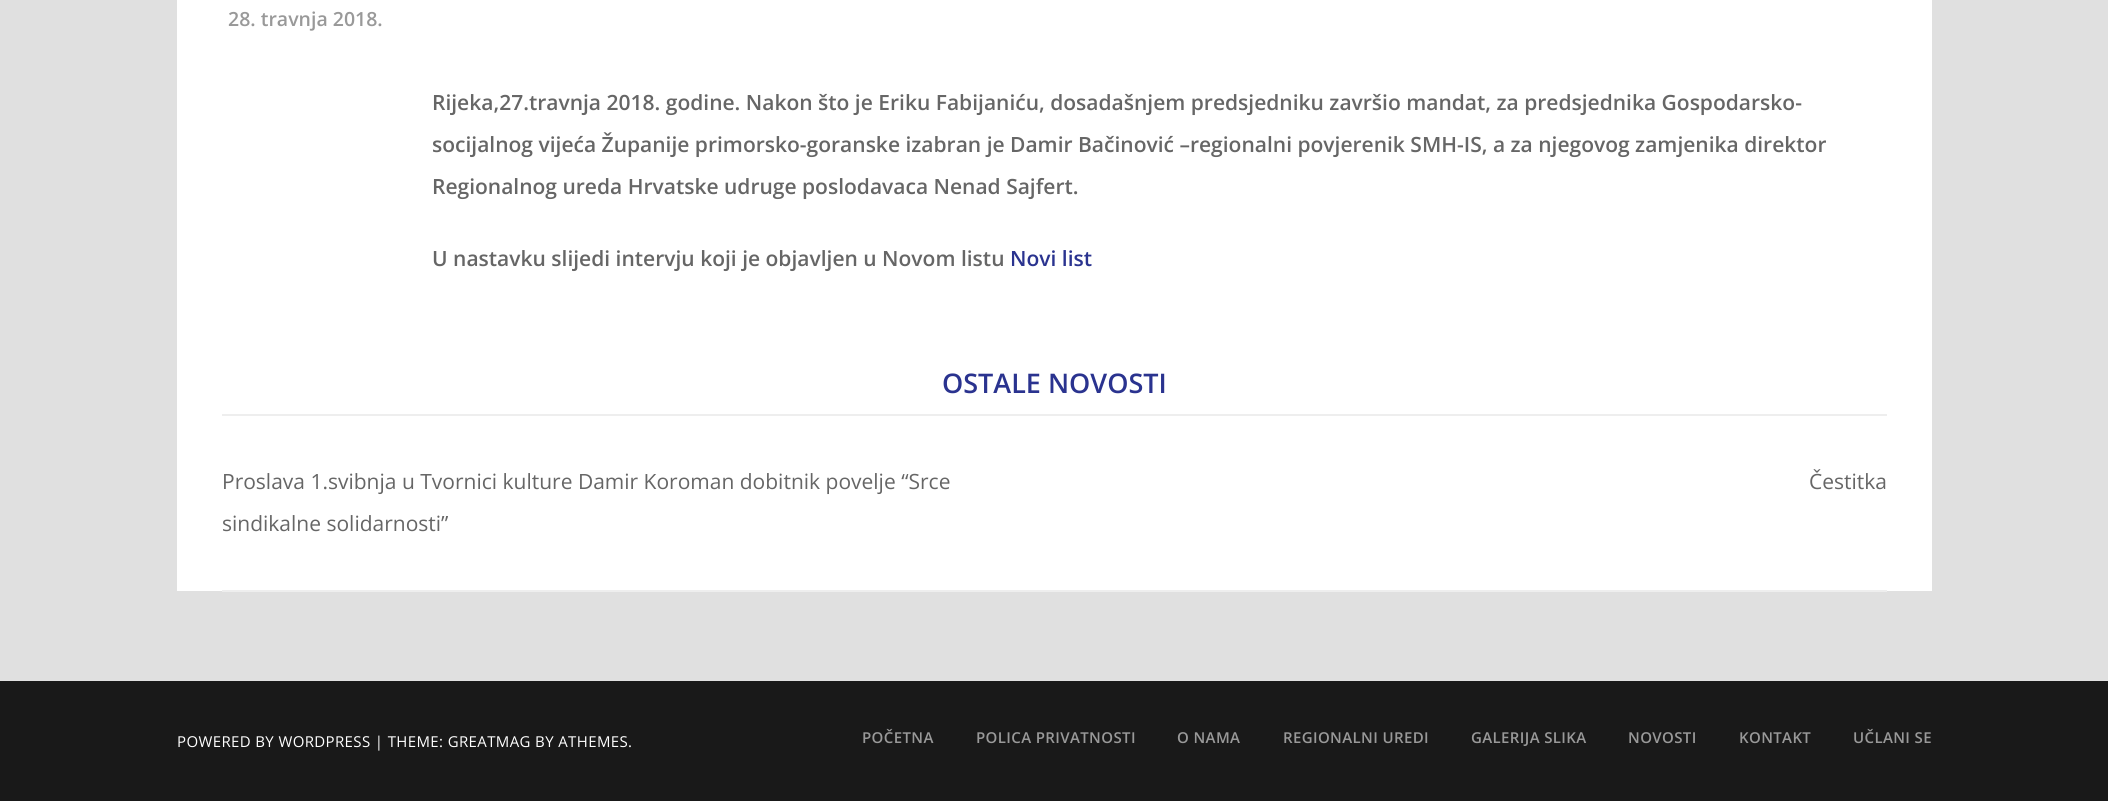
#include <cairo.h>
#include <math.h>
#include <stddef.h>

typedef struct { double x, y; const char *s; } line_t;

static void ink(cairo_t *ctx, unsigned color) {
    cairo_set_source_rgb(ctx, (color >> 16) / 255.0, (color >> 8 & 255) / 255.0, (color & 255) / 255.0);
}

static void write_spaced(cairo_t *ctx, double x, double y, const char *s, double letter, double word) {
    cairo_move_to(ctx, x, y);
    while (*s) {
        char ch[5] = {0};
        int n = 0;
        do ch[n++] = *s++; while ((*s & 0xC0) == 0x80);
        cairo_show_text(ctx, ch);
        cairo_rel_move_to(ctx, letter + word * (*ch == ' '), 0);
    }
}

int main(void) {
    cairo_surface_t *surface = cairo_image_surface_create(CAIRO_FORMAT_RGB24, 2108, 801);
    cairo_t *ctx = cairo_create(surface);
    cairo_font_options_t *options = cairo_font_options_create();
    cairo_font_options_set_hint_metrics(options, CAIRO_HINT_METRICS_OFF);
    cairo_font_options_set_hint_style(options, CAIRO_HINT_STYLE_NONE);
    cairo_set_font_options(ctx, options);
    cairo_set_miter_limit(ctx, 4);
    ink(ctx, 0xE0E0E0);
    cairo_paint(ctx);
    ink(ctx, 0xFFFFFF);
    cairo_rectangle(ctx, 177, 0, 1755, 591);
    cairo_fill(ctx);
    cairo_select_font_face(ctx, "Open Sans SemiBold", CAIRO_FONT_SLANT_NORMAL, CAIRO_FONT_WEIGHT_NORMAL);
    cairo_set_font_size(ctx, 19.5);
    ink(ctx, 0x999999);
    cairo_move_to(ctx, 228, 26);
    cairo_show_text(ctx, "28. travnja 2018.");
    cairo_set_font_size(ctx, 21);
    ink(ctx, 0x666666);
    {
        static const line_t items[] = {
            {432, 110, "Rijeka,27.travnja 2018. godine. Nakon što je Eriku Fabijaniću, dosadašnjem predsjedniku završio mandat, za predsjednika Gospodarsko-"},
            {432, 152, "socijalnog vijeća Županije primorsko-goranske izabran je Damir Bačinović –regionalni povjerenik SMH-IS, a za njegovog zamjenika direktor"},
            {432, 194, "Regionalnog ureda Hrvatske udruge poslodavaca Nenad Sajfert."},
            {432, 266, "U nastavku slijedi intervju koji je objavljen u Novom listu"},
        };
        for (size_t i = 0; i < sizeof items / sizeof *items; i++) {
            cairo_move_to(ctx, items[i].x, items[i].y);
            cairo_show_text(ctx, items[i].s);
        }
    }
    ink(ctx, 0x2A338F);
    cairo_move_to(ctx, 1010, 266);
    cairo_show_text(ctx, "Novi list");
    cairo_set_font_size(ctx, 27);
    cairo_move_to(ctx, 942, 393);
    cairo_show_text(ctx, "OSTALE NOVOSTI");
    ink(ctx, 0xEEEEEE);
    cairo_rectangle(ctx, 222, 414, 1665, 2);
    cairo_fill(ctx);
    cairo_rectangle(ctx, 222, 590, 1665, 2);
    cairo_fill(ctx);
    cairo_select_font_face(ctx, "Open Sans", CAIRO_FONT_SLANT_NORMAL, CAIRO_FONT_WEIGHT_NORMAL);
    cairo_set_font_size(ctx, 21);
    ink(ctx, 0x666666);
    {
        static const line_t items[] = {
            {222, 489, "Proslava 1.svibnja u Tvornici kulture Damir Koroman dobitnik povelje “Srce"},
            {222, 531, "sindikalne solidarnosti”"},
            {1809, 489, "Čestitka"},
        };
        for (size_t i = 0; i < sizeof items / sizeof *items; i++) {
            cairo_move_to(ctx, items[i].x, items[i].y);
            cairo_show_text(ctx, items[i].s);
        }
    }
    ink(ctx, 0x191919);
    cairo_rectangle(ctx, 0, 681, 2108, 120);
    cairo_fill(ctx);
    cairo_set_font_size(ctx, 15);
    ink(ctx, 0xFFFFFF);
    write_spaced(ctx, 177, 747, "POWERED BY WORDPRESS | THEME: GREATMAG BY ATHEMES.", 0.38, 0);
    cairo_select_font_face(ctx, "Open Sans SemiBold", CAIRO_FONT_SLANT_NORMAL, CAIRO_FONT_WEIGHT_NORMAL);
    ink(ctx, 0x999999);
    {
        static const line_t items[] = {
            {862, 743, "POČETNA"},
            {976, 743, "POLICA PRIVATNOSTI"},
            {1177, 743, "O NAMA"},
            {1283, 743, "REGIONALNI UREDI"},
            {1471, 743, "GALERIJA SLIKA"},
            {1628, 743, "NOVOSTI"},
            {1739, 743, "KONTAKT"},
            {1853, 743, "UČLANI SE"},
        };
        for (size_t i = 0; i < sizeof items / sizeof *items; i++) {
            write_spaced(ctx, items[i].x, items[i].y, items[i].s, 0.38, 0);
        }
    }
    cairo_surface_write_to_png(surface, "image.png");
    cairo_font_options_destroy(options);
    cairo_destroy(ctx);
    cairo_surface_destroy(surface);
    return 0;
}
